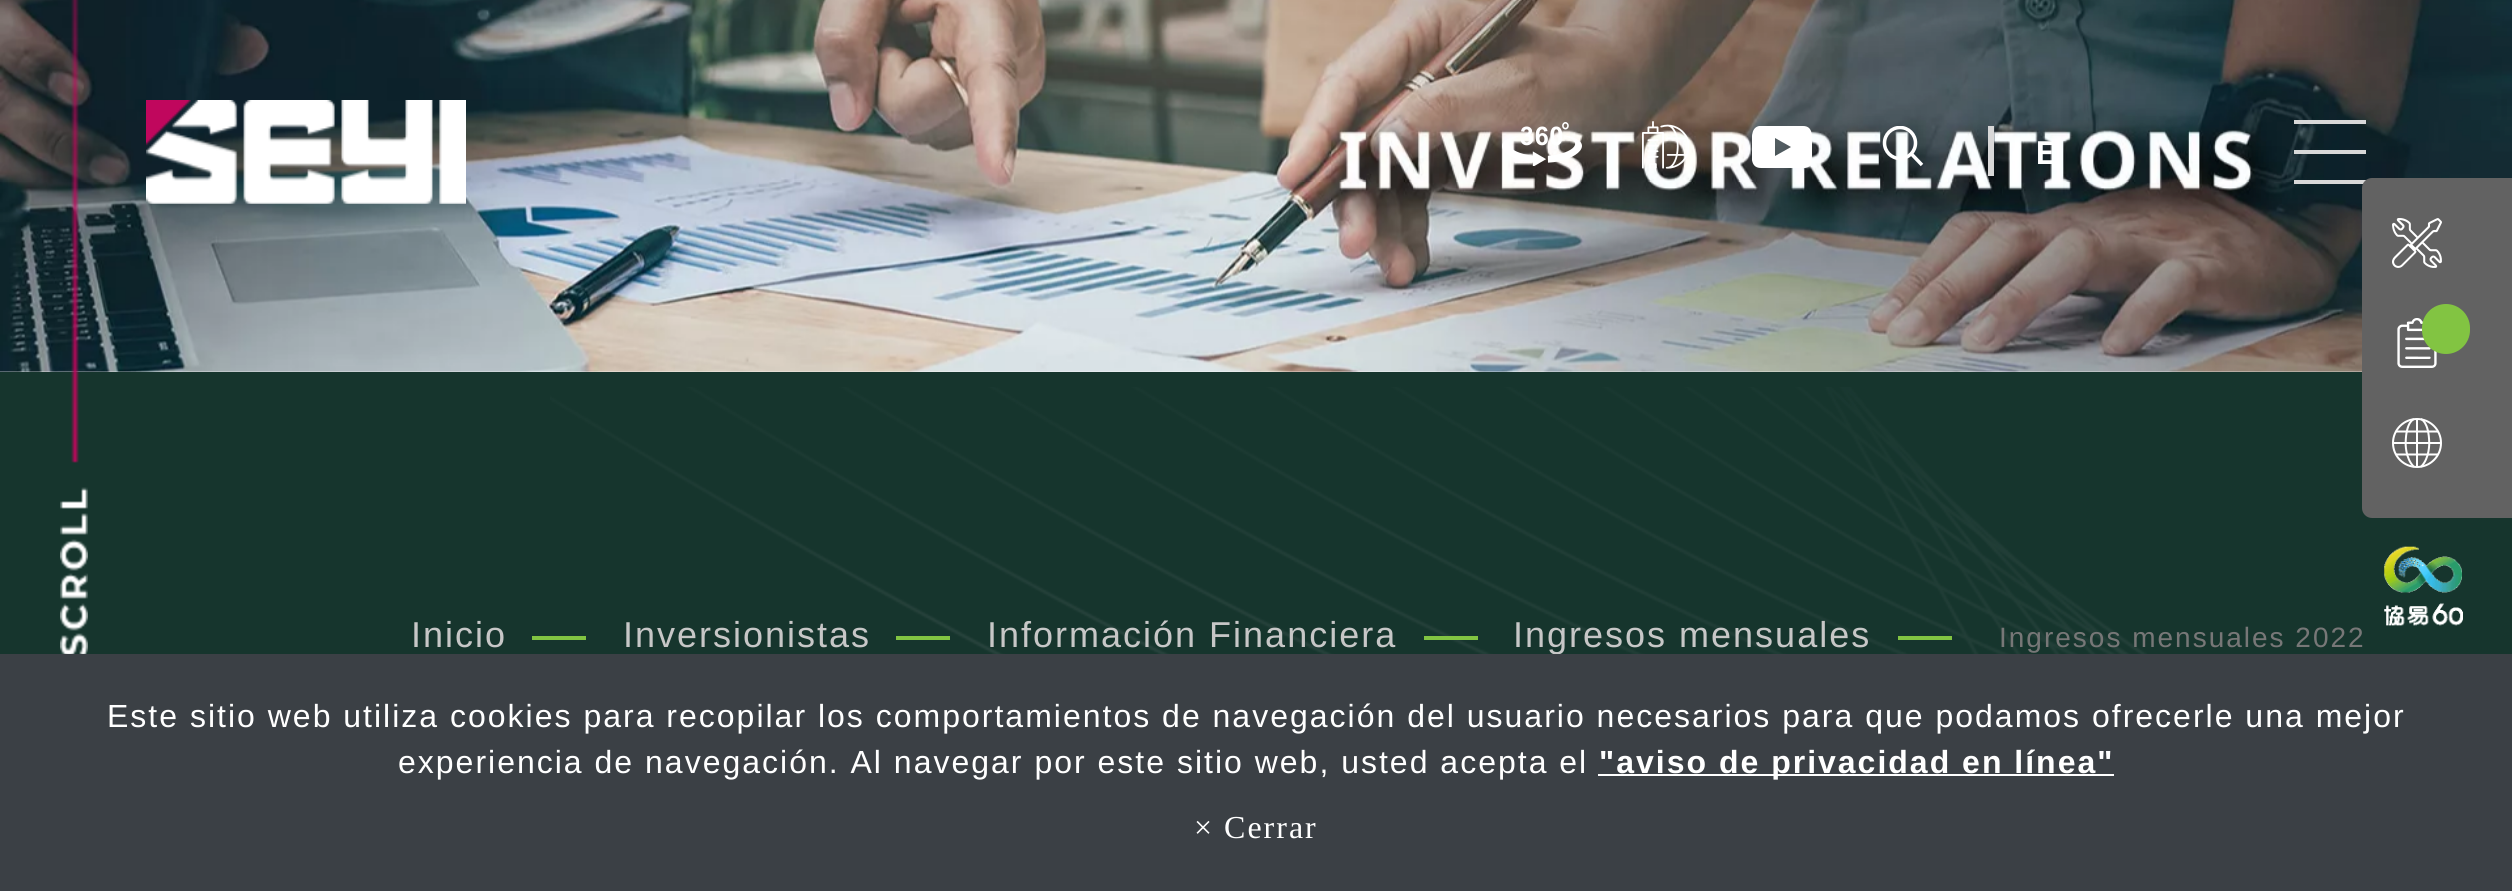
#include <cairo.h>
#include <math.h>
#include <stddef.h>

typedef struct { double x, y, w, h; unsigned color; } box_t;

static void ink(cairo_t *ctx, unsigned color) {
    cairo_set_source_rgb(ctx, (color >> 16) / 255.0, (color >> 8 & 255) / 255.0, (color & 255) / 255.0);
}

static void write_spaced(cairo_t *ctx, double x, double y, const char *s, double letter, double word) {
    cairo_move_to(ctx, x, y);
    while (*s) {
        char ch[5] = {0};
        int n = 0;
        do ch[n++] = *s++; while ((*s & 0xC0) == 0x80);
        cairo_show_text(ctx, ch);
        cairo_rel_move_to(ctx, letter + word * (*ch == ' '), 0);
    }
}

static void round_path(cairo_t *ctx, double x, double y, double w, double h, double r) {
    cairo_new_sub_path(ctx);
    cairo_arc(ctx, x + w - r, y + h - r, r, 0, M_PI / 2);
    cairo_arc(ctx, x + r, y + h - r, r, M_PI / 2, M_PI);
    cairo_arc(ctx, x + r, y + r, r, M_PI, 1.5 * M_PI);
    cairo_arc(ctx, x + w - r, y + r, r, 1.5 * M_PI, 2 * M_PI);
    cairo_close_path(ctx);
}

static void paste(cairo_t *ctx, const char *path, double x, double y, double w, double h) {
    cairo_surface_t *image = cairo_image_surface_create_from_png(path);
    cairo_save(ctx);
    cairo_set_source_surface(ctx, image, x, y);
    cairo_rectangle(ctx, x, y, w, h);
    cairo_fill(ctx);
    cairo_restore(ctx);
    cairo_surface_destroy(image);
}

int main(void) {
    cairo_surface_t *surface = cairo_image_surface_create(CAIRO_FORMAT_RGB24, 2512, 891);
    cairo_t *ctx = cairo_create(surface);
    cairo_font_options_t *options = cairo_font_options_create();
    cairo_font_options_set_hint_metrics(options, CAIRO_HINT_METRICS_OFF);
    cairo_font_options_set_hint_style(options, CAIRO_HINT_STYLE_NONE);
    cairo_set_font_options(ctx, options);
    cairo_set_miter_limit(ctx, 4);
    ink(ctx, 0xFFFFFF);
    cairo_paint(ctx);
    paste(ctx, "media/1.png", 0, 0, 2512, 372);
    ink(ctx, 0x16352D);
    cairo_rectangle(ctx, 0, 372, 2512, 282);
    cairo_fill(ctx);
    paste(ctx, "media/2.png", 60, 0, 28, 654);
    paste(ctx, "media/3.png", 146, 100, 320, 104);
    paste(ctx, "media/4.png", 1502, 122, 80, 44);
    paste(ctx, "media/5.png", 1642, 121, 47, 48);
    cairo_save(ctx);
    cairo_rectangle(ctx, 1752, 122, 60, 50);
    cairo_clip(ctx);
    ink(ctx, 0xFFFFFF);
    cairo_new_path(ctx);
    cairo_move_to(ctx, 1803, 126);
    cairo_line_to(ctx, 1759, 126);
    cairo_curve_to(ctx, 1750, 128, 1752, 140, 1752, 147);
    cairo_curve_to(ctx, 1752, 154, 1749, 168, 1761, 168);
    cairo_line_to(ctx, 1805, 168);
    cairo_curve_to(ctx, 1812, 167, 1812, 161, 1812, 155);
    cairo_line_to(ctx, 1812, 143);
    cairo_curve_to(ctx, 1812, 136, 1813, 126, 1803, 126);
    cairo_close_path(ctx);
    cairo_move_to(ctx, 1775, 156);
    cairo_line_to(ctx, 1775, 138);
    cairo_line_to(ctx, 1791, 147);
    cairo_close_path(ctx);
    cairo_fill(ctx);
    cairo_restore(ctx);
    ink(ctx, 0xD8D8D8);
    cairo_rectangle(ctx, 1988, 126, 6, 50);
    cairo_fill(ctx);
    cairo_save(ctx);
    cairo_rectangle(ctx, 1878, 126, 50, 40);
    cairo_clip(ctx);
    cairo_arc(ctx, 1900, 143, 15.5, 0, 2 * M_PI);
    ink(ctx, 0xFFFFFF);
    cairo_set_line_width(ctx, 3.5);
    cairo_stroke(ctx);
    cairo_restore(ctx);
    cairo_new_path(ctx);
    cairo_move_to(ctx, 1922, 165);
    cairo_line_to(ctx, 1911, 153.5);
    ink(ctx, 0xFFFFFF);
    cairo_set_line_width(ctx, 3.5);
    cairo_stroke(ctx);
    cairo_select_font_face(ctx, "Roboto", CAIRO_FONT_SLANT_NORMAL, CAIRO_FONT_WEIGHT_BOLD);
    cairo_set_font_size(ctx, 32);
    write_spaced(ctx, 2036, 164, "E", 4, 0);
    {
        static const box_t items[] = {
            {2294, 120, 72, 4, 0xD8D8D8},
            {2294, 150, 72, 4, 0xD8D8D8},
            {2294, 180, 72, 4, 0xD8D8D8},
        };
        for (size_t i = 0; i < sizeof items / sizeof *items; i++) {
            ink(ctx, items[i].color);
            cairo_rectangle(ctx, items[i].x, items[i].y, items[i].w, items[i].h);
            cairo_fill(ctx);
        }
    }
    ink(ctx, 0x626262);
    cairo_new_path(ctx);
    cairo_move_to(ctx, 2372, 178);
    cairo_line_to(ctx, 2512, 178);
    cairo_line_to(ctx, 2512, 518);
    cairo_line_to(ctx, 2372, 518);
    cairo_curve_to(ctx, 2366.5, 518, 2362, 513.5, 2362, 508);
    cairo_line_to(ctx, 2362, 188);
    cairo_curve_to(ctx, 2362, 182.5, 2366.5, 178, 2372, 178);
    cairo_close_path(ctx);
    cairo_fill(ctx);
    paste(ctx, "media/6.png", 2392, 218, 50, 50);
    paste(ctx, "media/7.png", 2397, 318, 40, 50);
    ink(ctx, 0x82C442);
    round_path(ctx, 2422, 304, 48, 50, 24);
    cairo_fill(ctx);
    paste(ctx, "media/8.png", 2392, 418, 50, 50);
    paste(ctx, "media/9.png", 2384, 546, 79, 80);
    paste(ctx, "media/10.png", 550, 387, 1597, 267);
    cairo_select_font_face(ctx, "Liberation Sans", CAIRO_FONT_SLANT_NORMAL, CAIRO_FONT_WEIGHT_NORMAL);
    cairo_set_font_size(ctx, 36);
    ink(ctx, 0xC7C7C7);
    write_spaced(ctx, 411, 647, "Inicio", 2, 0);
    ink(ctx, 0x82C442);
    cairo_rectangle(ctx, 532, 636, 54, 4);
    cairo_fill(ctx);
    ink(ctx, 0xC7C7C7);
    write_spaced(ctx, 623, 647, "Inversionistas", 2, 0);
    ink(ctx, 0x82C442);
    cairo_rectangle(ctx, 896, 636, 54, 4);
    cairo_fill(ctx);
    ink(ctx, 0xC7C7C7);
    write_spaced(ctx, 987, 647, "Información Financiera", 2, 0);
    ink(ctx, 0x82C442);
    cairo_rectangle(ctx, 1424, 636, 54, 4);
    cairo_fill(ctx);
    ink(ctx, 0xC7C7C7);
    write_spaced(ctx, 1513, 647, "Ingresos mensuales", 2, 0);
    ink(ctx, 0x82C442);
    cairo_rectangle(ctx, 1898, 636, 54, 4);
    cairo_fill(ctx);
    cairo_set_font_size(ctx, 28);
    ink(ctx, 0x777777);
    write_spaced(ctx, 1999, 647, "Ingresos mensuales 2022", 2, 0);
    ink(ctx, 0x3B4045);
    cairo_rectangle(ctx, 0, 654, 2512, 237);
    cairo_fill(ctx);
    cairo_set_font_size(ctx, 32);
    ink(ctx, 0xFFFFFF);
    write_spaced(ctx, 107, 727, "Este sitio web utiliza cookies para recopilar los comportamientos de navegación del usuario necesarios para que podamos ofrecerle una mejor", 2, 0);
    write_spaced(ctx, 398, 773, "experiencia de navegación. Al navegar por este sitio web, usted acepta el", 2, 0);
    cairo_rectangle(ctx, 1598, 774, 516, 2);
    cairo_fill(ctx);
    cairo_select_font_face(ctx, "Liberation Sans", CAIRO_FONT_SLANT_NORMAL, CAIRO_FONT_WEIGHT_BOLD);
    write_spaced(ctx, 1599, 773, "\"aviso de privacidad en línea\"", 2, 0);
    cairo_select_font_face(ctx, "Liberation Serif", CAIRO_FONT_SLANT_NORMAL, CAIRO_FONT_WEIGHT_NORMAL);
    write_spaced(ctx, 1194, 838, "× Cerrar", 2, 0);
    cairo_surface_write_to_png(surface, "image.png");
    cairo_font_options_destroy(options);
    cairo_destroy(ctx);
    cairo_surface_destroy(surface);
    return 0;
}
